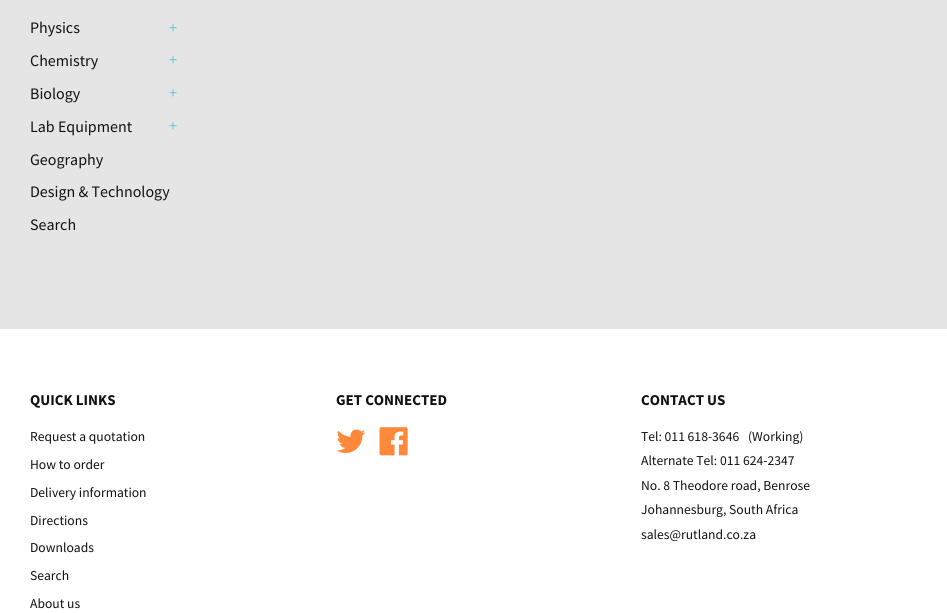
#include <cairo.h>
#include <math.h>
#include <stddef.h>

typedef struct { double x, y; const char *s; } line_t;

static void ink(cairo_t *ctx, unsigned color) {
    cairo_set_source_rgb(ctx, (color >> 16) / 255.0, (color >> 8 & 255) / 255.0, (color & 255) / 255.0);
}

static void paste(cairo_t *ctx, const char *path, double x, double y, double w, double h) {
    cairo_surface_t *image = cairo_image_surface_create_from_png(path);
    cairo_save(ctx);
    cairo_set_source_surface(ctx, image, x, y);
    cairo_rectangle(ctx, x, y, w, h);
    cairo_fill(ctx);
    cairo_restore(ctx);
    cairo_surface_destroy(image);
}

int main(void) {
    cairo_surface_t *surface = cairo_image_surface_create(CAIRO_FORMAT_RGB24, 947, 613);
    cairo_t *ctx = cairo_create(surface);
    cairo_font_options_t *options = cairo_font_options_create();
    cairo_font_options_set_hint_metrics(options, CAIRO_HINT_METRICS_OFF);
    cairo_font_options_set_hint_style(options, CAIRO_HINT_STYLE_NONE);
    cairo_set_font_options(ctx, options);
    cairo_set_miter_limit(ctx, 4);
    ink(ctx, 0xE5E5E5);
    cairo_paint(ctx);
    cairo_select_font_face(ctx, "Source Sans Pro", CAIRO_FONT_SLANT_NORMAL, CAIRO_FONT_WEIGHT_NORMAL);
    cairo_set_font_size(ctx, 16);
    ink(ctx, 0x111111);
    cairo_move_to(ctx, 30, 33);
    cairo_show_text(ctx, "Physics");
    paste(ctx, "media/1.png", 169, 24, 8, 8);
    cairo_move_to(ctx, 30, 66);
    cairo_show_text(ctx, "Chemistry");
    paste(ctx, "media/1.png", 169, 56, 8, 8);
    cairo_move_to(ctx, 30, 99);
    cairo_show_text(ctx, "Biology");
    paste(ctx, "media/1.png", 169, 89, 8, 8);
    cairo_move_to(ctx, 30, 132);
    cairo_show_text(ctx, "Lab Equipment");
    paste(ctx, "media/1.png", 169, 122, 8, 8);
    {
        static const line_t items[] = {
            {30, 165, "Geography"},
            {30, 197, "Design & Technology"},
            {30, 230, "Search"},
        };
        for (size_t i = 0; i < sizeof items / sizeof *items; i++) {
            cairo_move_to(ctx, items[i].x, items[i].y);
            cairo_show_text(ctx, items[i].s);
        }
    }
    ink(ctx, 0xFFFFFF);
    cairo_rectangle(ctx, 0, 329, 947, 284);
    cairo_fill(ctx);
    cairo_select_font_face(ctx, "Source Sans Pro", CAIRO_FONT_SLANT_NORMAL, CAIRO_FONT_WEIGHT_BOLD);
    cairo_set_font_size(ctx, 15);
    ink(ctx, 0x111111);
    cairo_move_to(ctx, 30, 405);
    cairo_show_text(ctx, "QUICK LINKS");
    cairo_select_font_face(ctx, "Source Sans Pro", CAIRO_FONT_SLANT_NORMAL, CAIRO_FONT_WEIGHT_NORMAL);
    cairo_set_font_size(ctx, 13.6);
    {
        static const line_t items[] = {
            {30, 441, "Request a quotation"},
            {30, 469, "How to order"},
            {30, 497, "Delivery information"},
            {30, 525, "Directions"},
            {30, 552, "Downloads"},
            {30, 580, "Search"},
            {30, 608, "About us"},
        };
        for (size_t i = 0; i < sizeof items / sizeof *items; i++) {
            cairo_move_to(ctx, items[i].x, items[i].y);
            cairo_show_text(ctx, items[i].s);
        }
    }
    cairo_select_font_face(ctx, "Source Sans Pro", CAIRO_FONT_SLANT_NORMAL, CAIRO_FONT_WEIGHT_BOLD);
    cairo_set_font_size(ctx, 15);
    cairo_move_to(ctx, 336, 405);
    cairo_show_text(ctx, "GET CONNECTED");
    paste(ctx, "media/2.png", 336, 429, 30, 24);
    paste(ctx, "media/3.png", 379, 427, 29, 29);
    cairo_move_to(ctx, 641, 405);
    cairo_show_text(ctx, "CONTACT US");
    cairo_select_font_face(ctx, "Source Sans Pro", CAIRO_FONT_SLANT_NORMAL, CAIRO_FONT_WEIGHT_NORMAL);
    cairo_set_font_size(ctx, 13.6);
    {
        static const line_t items[] = {
            {641, 441, "Tel: 011 618-3646"},
            {748, 441, "(Working)"},
            {641, 465, "Alternate Tel: 011 624-2347"},
            {641, 490, "No. 8 Theodore road, Benrose"},
            {641, 514, "Johannesburg, South Africa"},
            {641, 539, "sales@rutland.co.za"},
        };
        for (size_t i = 0; i < sizeof items / sizeof *items; i++) {
            cairo_move_to(ctx, items[i].x, items[i].y);
            cairo_show_text(ctx, items[i].s);
        }
    }
    cairo_surface_write_to_png(surface, "image.png");
    cairo_font_options_destroy(options);
    cairo_destroy(ctx);
    cairo_surface_destroy(surface);
    return 0;
}
